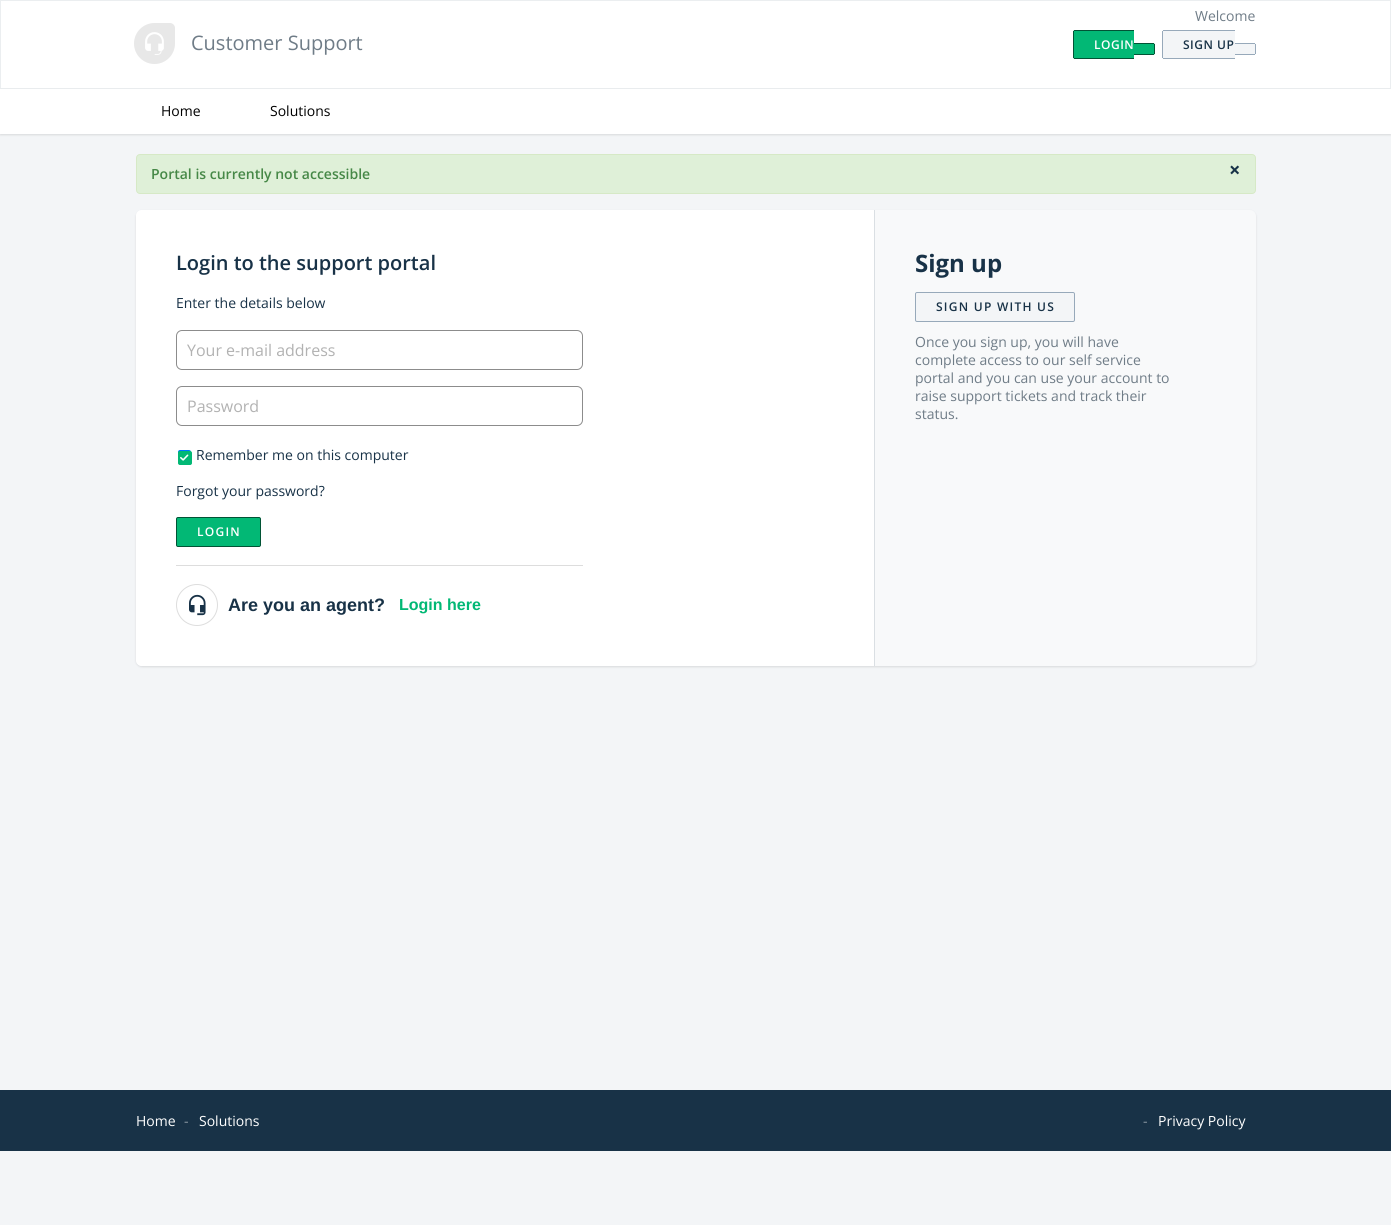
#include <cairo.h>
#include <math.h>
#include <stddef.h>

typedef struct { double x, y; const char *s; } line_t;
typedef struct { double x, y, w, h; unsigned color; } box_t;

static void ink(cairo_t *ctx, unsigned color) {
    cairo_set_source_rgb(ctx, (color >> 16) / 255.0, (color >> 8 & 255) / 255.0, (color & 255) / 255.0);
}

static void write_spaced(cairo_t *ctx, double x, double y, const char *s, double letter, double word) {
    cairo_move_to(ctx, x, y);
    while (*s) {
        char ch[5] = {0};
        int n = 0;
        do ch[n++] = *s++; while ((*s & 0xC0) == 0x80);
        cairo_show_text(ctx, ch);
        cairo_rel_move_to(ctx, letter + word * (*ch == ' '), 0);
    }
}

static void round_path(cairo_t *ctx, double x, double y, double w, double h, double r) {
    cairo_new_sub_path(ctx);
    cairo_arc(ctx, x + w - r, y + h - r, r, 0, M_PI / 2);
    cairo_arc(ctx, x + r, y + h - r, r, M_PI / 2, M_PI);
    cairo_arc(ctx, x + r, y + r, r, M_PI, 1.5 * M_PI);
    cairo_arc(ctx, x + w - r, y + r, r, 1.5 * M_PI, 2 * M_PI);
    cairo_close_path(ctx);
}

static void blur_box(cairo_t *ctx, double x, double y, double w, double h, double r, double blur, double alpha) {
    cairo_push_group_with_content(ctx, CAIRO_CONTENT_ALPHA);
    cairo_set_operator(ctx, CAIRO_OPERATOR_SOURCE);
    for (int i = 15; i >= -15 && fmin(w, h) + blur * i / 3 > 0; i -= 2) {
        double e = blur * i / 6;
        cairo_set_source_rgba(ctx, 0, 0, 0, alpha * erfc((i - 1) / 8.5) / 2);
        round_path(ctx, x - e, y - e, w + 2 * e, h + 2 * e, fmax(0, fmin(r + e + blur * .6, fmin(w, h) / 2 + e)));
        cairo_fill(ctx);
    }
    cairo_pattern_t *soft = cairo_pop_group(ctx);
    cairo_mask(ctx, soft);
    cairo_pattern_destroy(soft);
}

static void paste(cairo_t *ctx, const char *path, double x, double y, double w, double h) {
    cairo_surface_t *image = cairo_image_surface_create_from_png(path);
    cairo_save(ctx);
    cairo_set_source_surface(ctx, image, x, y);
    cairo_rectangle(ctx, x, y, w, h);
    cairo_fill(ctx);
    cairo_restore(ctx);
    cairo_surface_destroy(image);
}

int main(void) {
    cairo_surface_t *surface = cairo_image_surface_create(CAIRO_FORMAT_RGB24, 1391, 1225);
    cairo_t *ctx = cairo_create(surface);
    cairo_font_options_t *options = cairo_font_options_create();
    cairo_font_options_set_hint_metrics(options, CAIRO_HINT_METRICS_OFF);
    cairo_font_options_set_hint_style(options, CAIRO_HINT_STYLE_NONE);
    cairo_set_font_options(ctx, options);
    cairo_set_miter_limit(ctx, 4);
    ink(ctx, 0xF3F5F7);
    cairo_paint(ctx);
    ink(ctx, 0xFFFFFF);
    cairo_rectangle(ctx, 0.5, 0.5, 1390, 88);
    cairo_fill_preserve(ctx);
    ink(ctx, 0xEBEEF0);
    cairo_set_line_width(ctx, 1);
    cairo_stroke(ctx);
    paste(ctx, "media/1.png", 134, 23, 41, 41);
    cairo_select_font_face(ctx, "Open Sans", CAIRO_FONT_SLANT_NORMAL, CAIRO_FONT_WEIGHT_NORMAL);
    cairo_set_font_size(ctx, 20);
    ink(ctx, 0x6F7C87);
    cairo_move_to(ctx, 191, 50);
    cairo_show_text(ctx, "Customer Support");
    cairo_set_font_size(ctx, 14);
    cairo_move_to(ctx, 1195, 21);
    cairo_show_text(ctx, "Welcome");
    ink(ctx, 0x02B875);
    cairo_new_path(ctx);
    cairo_move_to(ctx, 1075, 30);
    cairo_line_to(ctx, 1134, 30);
    cairo_line_to(ctx, 1134, 59);
    cairo_line_to(ctx, 1075, 59);
    cairo_curve_to(ctx, 1074, 59, 1073, 58, 1073, 57);
    cairo_line_to(ctx, 1073, 32);
    cairo_curve_to(ctx, 1073, 31, 1074, 30, 1075, 30);
    cairo_close_path(ctx);
    cairo_fill(ctx);
    cairo_select_font_face(ctx, "Open Sans SemiBold", CAIRO_FONT_SLANT_NORMAL, CAIRO_FONT_WEIGHT_NORMAL);
    cairo_set_font_size(ctx, 12);
    ink(ctx, 0xFFFFFF);
    write_spaced(ctx, 1094, 49, "LOGIN", 0.5, 0);
    {
        static const box_t items[] = {
            {1074, 30, 60, 1, 0x015335},
            {1074, 58, 60, 1, 0x015335},
            {1073, 31, 1, 27, 0x015335},
        };
        for (size_t i = 0; i < sizeof items / sizeof *items; i++) {
            ink(ctx, items[i].color);
            cairo_rectangle(ctx, items[i].x, items[i].y, items[i].w, items[i].h);
            cairo_fill(ctx);
        }
    }
    ink(ctx, 0x02B875);
    cairo_new_path(ctx);
    cairo_move_to(ctx, 1134, 43);
    cairo_line_to(ctx, 1153, 43);
    cairo_curve_to(ctx, 1154, 43, 1155, 44, 1155, 45);
    cairo_line_to(ctx, 1155, 53);
    cairo_curve_to(ctx, 1155, 54, 1154, 55, 1153, 55);
    cairo_line_to(ctx, 1134, 55);
    cairo_close_path(ctx);
    cairo_fill(ctx);
    {
        static const box_t items[] = {
            {1134, 43, 20, 1, 0x015335},
            {1154, 44, 1, 10, 0x015335},
            {1134, 54, 20, 1, 0x015335},
        };
        for (size_t i = 0; i < sizeof items / sizeof *items; i++) {
            ink(ctx, items[i].color);
            cairo_rectangle(ctx, items[i].x, items[i].y, items[i].w, items[i].h);
            cairo_fill(ctx);
        }
    }
    ink(ctx, 0xF3F5F7);
    cairo_new_path(ctx);
    cairo_move_to(ctx, 1164, 30);
    cairo_line_to(ctx, 1235, 30);
    cairo_line_to(ctx, 1235, 59);
    cairo_line_to(ctx, 1164, 59);
    cairo_curve_to(ctx, 1163, 59, 1162, 58, 1162, 57);
    cairo_line_to(ctx, 1162, 32);
    cairo_curve_to(ctx, 1162, 31, 1163, 30, 1164, 30);
    cairo_close_path(ctx);
    cairo_fill(ctx);
    ink(ctx, 0x183247);
    write_spaced(ctx, 1183, 49, "SIGN UP", 0.5, 0);
    {
        static const box_t items[] = {
            {1163, 30, 72, 1, 0x97A9BA},
            {1163, 58, 72, 1, 0x97A9BA},
            {1162, 31, 1, 27, 0x97A9BA},
        };
        for (size_t i = 0; i < sizeof items / sizeof *items; i++) {
            ink(ctx, items[i].color);
            cairo_rectangle(ctx, items[i].x, items[i].y, items[i].w, items[i].h);
            cairo_fill(ctx);
        }
    }
    ink(ctx, 0xF3F5F7);
    cairo_new_path(ctx);
    cairo_move_to(ctx, 1235, 43);
    cairo_line_to(ctx, 1254, 43);
    cairo_curve_to(ctx, 1255, 43, 1256, 44, 1256, 45);
    cairo_line_to(ctx, 1256, 53);
    cairo_curve_to(ctx, 1256, 54, 1255, 55, 1254, 55);
    cairo_line_to(ctx, 1235, 55);
    cairo_close_path(ctx);
    cairo_fill(ctx);
    {
        static const box_t items[] = {
            {1235, 43, 20, 1, 0x97A9BA},
            {1255, 44, 1, 10, 0x97A9BA},
            {1235, 54, 20, 1, 0x97A9BA},
        };
        for (size_t i = 0; i < sizeof items / sizeof *items; i++) {
            ink(ctx, items[i].color);
            cairo_rectangle(ctx, items[i].x, items[i].y, items[i].w, items[i].h);
            cairo_fill(ctx);
        }
    }
    ink(ctx, 0x3F3F44);
    blur_box(ctx, 0, 90, 1391, 45, 0, 1, 0.15);
    ink(ctx, 0xFFFFFF);
    cairo_rectangle(ctx, 0, 89, 1391, 45);
    cairo_fill(ctx);
    cairo_select_font_face(ctx, "Open Sans", CAIRO_FONT_SLANT_NORMAL, CAIRO_FONT_WEIGHT_NORMAL);
    cairo_set_font_size(ctx, 14);
    ink(ctx, 0x000000);
    cairo_move_to(ctx, 161, 116);
    cairo_show_text(ctx, "Home");
    cairo_move_to(ctx, 270, 116);
    cairo_show_text(ctx, "Solutions");
    ink(ctx, 0xDFF0D8);
    round_path(ctx, 136.5, 154.5, 1119, 39, 3.5);
    cairo_fill_preserve(ctx);
    ink(ctx, 0xD6E9C6);
    cairo_stroke(ctx);
    cairo_select_font_face(ctx, "Open Sans SemiBold", CAIRO_FONT_SLANT_NORMAL, CAIRO_FONT_WEIGHT_NORMAL);
    ink(ctx, 0x468847);
    cairo_move_to(ctx, 151, 179);
    cairo_show_text(ctx, "Portal is currently not accessible");
    cairo_select_font_face(ctx, "Open Sans", CAIRO_FONT_SLANT_NORMAL, CAIRO_FONT_WEIGHT_BOLD);
    cairo_set_font_size(ctx, 20);
    ink(ctx, 0x183247);
    cairo_move_to(ctx, 1229, 177);
    cairo_show_text(ctx, "×");
    ink(ctx, 0x3F3F44);
    blur_box(ctx, 136, 211, 1120, 456, 6, 1, 0.15);
    ink(ctx, 0xF8F9FA);
    round_path(ctx, 136, 210, 1120, 456, 6);
    cairo_fill(ctx);
    ink(ctx, 0xFFFFFF);
    cairo_new_path(ctx);
    cairo_move_to(ctx, 142, 210);
    cairo_line_to(ctx, 875, 210);
    cairo_line_to(ctx, 875, 666);
    cairo_line_to(ctx, 142, 666);
    cairo_curve_to(ctx, 138.5, 666, 136, 663.5, 136, 660);
    cairo_line_to(ctx, 136, 216);
    cairo_curve_to(ctx, 136, 212.5, 138.5, 210, 142, 210);
    cairo_close_path(ctx);
    cairo_fill(ctx);
    ink(ctx, 0xDADFE3);
    cairo_rectangle(ctx, 874, 210, 1, 456);
    cairo_fill(ctx);
    cairo_select_font_face(ctx, "Open Sans SemiBold", CAIRO_FONT_SLANT_NORMAL, CAIRO_FONT_WEIGHT_NORMAL);
    ink(ctx, 0x183247);
    cairo_move_to(ctx, 176, 270);
    cairo_show_text(ctx, "Login to the support portal");
    cairo_select_font_face(ctx, "Open Sans", CAIRO_FONT_SLANT_NORMAL, CAIRO_FONT_WEIGHT_NORMAL);
    cairo_set_font_size(ctx, 14);
    cairo_move_to(ctx, 176, 308);
    cairo_show_text(ctx, "Enter the details below");
    round_path(ctx, 176.5, 330.5, 406, 39, 5.5);
    ink(ctx, 0x8C8C8C);
    cairo_stroke(ctx);
    cairo_set_font_size(ctx, 16);
    ink(ctx, 0xB2B2B2);
    cairo_move_to(ctx, 187, 356);
    cairo_show_text(ctx, "Your e-mail address");
    round_path(ctx, 176.5, 386.5, 406, 39, 5.5);
    ink(ctx, 0x8C8C8C);
    cairo_stroke(ctx);
    ink(ctx, 0xB2B2B2);
    cairo_move_to(ctx, 187, 412);
    cairo_show_text(ctx, "Password");
    ink(ctx, 0x0075FF);
    round_path(ctx, 178, 450, 13, 13, 2);
    cairo_fill(ctx);
    ink(ctx, 0x02B875);
    round_path(ctx, 178.5, 451.5, 13, 13, 1.5);
    cairo_fill_preserve(ctx);
    cairo_stroke(ctx);
    paste(ctx, "media/2.png", 180, 454, 9, 7);
    cairo_set_font_size(ctx, 14);
    ink(ctx, 0x183247);
    cairo_move_to(ctx, 196, 460);
    cairo_show_text(ctx, "Remember me on this computer");
    cairo_move_to(ctx, 176, 496);
    cairo_show_text(ctx, "Forgot your password?");
    ink(ctx, 0x02B875);
    round_path(ctx, 176.5, 517.5, 84, 29, 1.5);
    cairo_fill_preserve(ctx);
    ink(ctx, 0x015335);
    cairo_stroke(ctx);
    cairo_select_font_face(ctx, "Open Sans SemiBold", CAIRO_FONT_SLANT_NORMAL, CAIRO_FONT_WEIGHT_NORMAL);
    cairo_set_font_size(ctx, 12);
    ink(ctx, 0xFFFFFF);
    write_spaced(ctx, 197, 536, "LOGIN", 1.25, 0);
    ink(ctx, 0xDDDDDD);
    cairo_rectangle(ctx, 176, 565, 407, 1);
    cairo_fill(ctx);
    cairo_arc(ctx, 197, 605, 20.5, 0, 2 * M_PI);
    cairo_stroke(ctx);
    paste(ctx, "media/3.png", 189, 594, 17, 22);
    cairo_select_font_face(ctx, "Liberation Sans", CAIRO_FONT_SLANT_NORMAL, CAIRO_FONT_WEIGHT_BOLD);
    cairo_set_font_size(ctx, 18);
    ink(ctx, 0x183247);
    cairo_move_to(ctx, 228, 611);
    cairo_show_text(ctx, "Are you an agent?");
    cairo_set_font_size(ctx, 16);
    ink(ctx, 0x02B875);
    cairo_move_to(ctx, 399, 610);
    cairo_show_text(ctx, "Login here");
    cairo_select_font_face(ctx, "Open Sans", CAIRO_FONT_SLANT_NORMAL, CAIRO_FONT_WEIGHT_BOLD);
    cairo_set_font_size(ctx, 24);
    ink(ctx, 0x183247);
    cairo_move_to(ctx, 915, 272);
    cairo_show_text(ctx, "Sign up");
    ink(ctx, 0xF3F5F7);
    round_path(ctx, 915.5, 292.5, 159, 29, 1.5);
    cairo_fill_preserve(ctx);
    ink(ctx, 0x97A9BA);
    cairo_stroke(ctx);
    cairo_select_font_face(ctx, "Open Sans SemiBold", CAIRO_FONT_SLANT_NORMAL, CAIRO_FONT_WEIGHT_NORMAL);
    cairo_set_font_size(ctx, 12);
    ink(ctx, 0x183247);
    write_spaced(ctx, 936, 311, "SIGN UP WITH US", 1.25, 0);
    cairo_select_font_face(ctx, "Open Sans", CAIRO_FONT_SLANT_NORMAL, CAIRO_FONT_WEIGHT_NORMAL);
    cairo_set_font_size(ctx, 14);
    ink(ctx, 0x6F7C87);
    {
        static const line_t items[] = {
            {915, 347, "Once you sign up, you will have"},
            {915, 365, "complete access to our self service"},
            {915, 383, "portal and you can use your account to"},
            {915, 401, "raise support tickets and track their"},
            {915, 419, "status."},
        };
        for (size_t i = 0; i < sizeof items / sizeof *items; i++) {
            cairo_move_to(ctx, items[i].x, items[i].y);
            cairo_show_text(ctx, items[i].s);
        }
    }
    ink(ctx, 0x183247);
    cairo_rectangle(ctx, 0, 1090, 1391, 61);
    cairo_fill(ctx);
    ink(ctx, 0xFFFFFF);
    cairo_move_to(ctx, 136, 1126);
    cairo_show_text(ctx, "Home");
    ink(ctx, 0x8C99A3);
    cairo_move_to(ctx, 184, 1126);
    cairo_show_text(ctx, "-");
    ink(ctx, 0xFFFFFF);
    cairo_move_to(ctx, 199, 1126);
    cairo_show_text(ctx, "Solutions");
    ink(ctx, 0x8C99A3);
    cairo_move_to(ctx, 1143, 1126);
    cairo_show_text(ctx, "-");
    ink(ctx, 0xFFFFFF);
    cairo_move_to(ctx, 1158, 1126);
    cairo_show_text(ctx, "Privacy Policy");
    cairo_surface_write_to_png(surface, "image.png");
    cairo_font_options_destroy(options);
    cairo_destroy(ctx);
    cairo_surface_destroy(surface);
    return 0;
}
